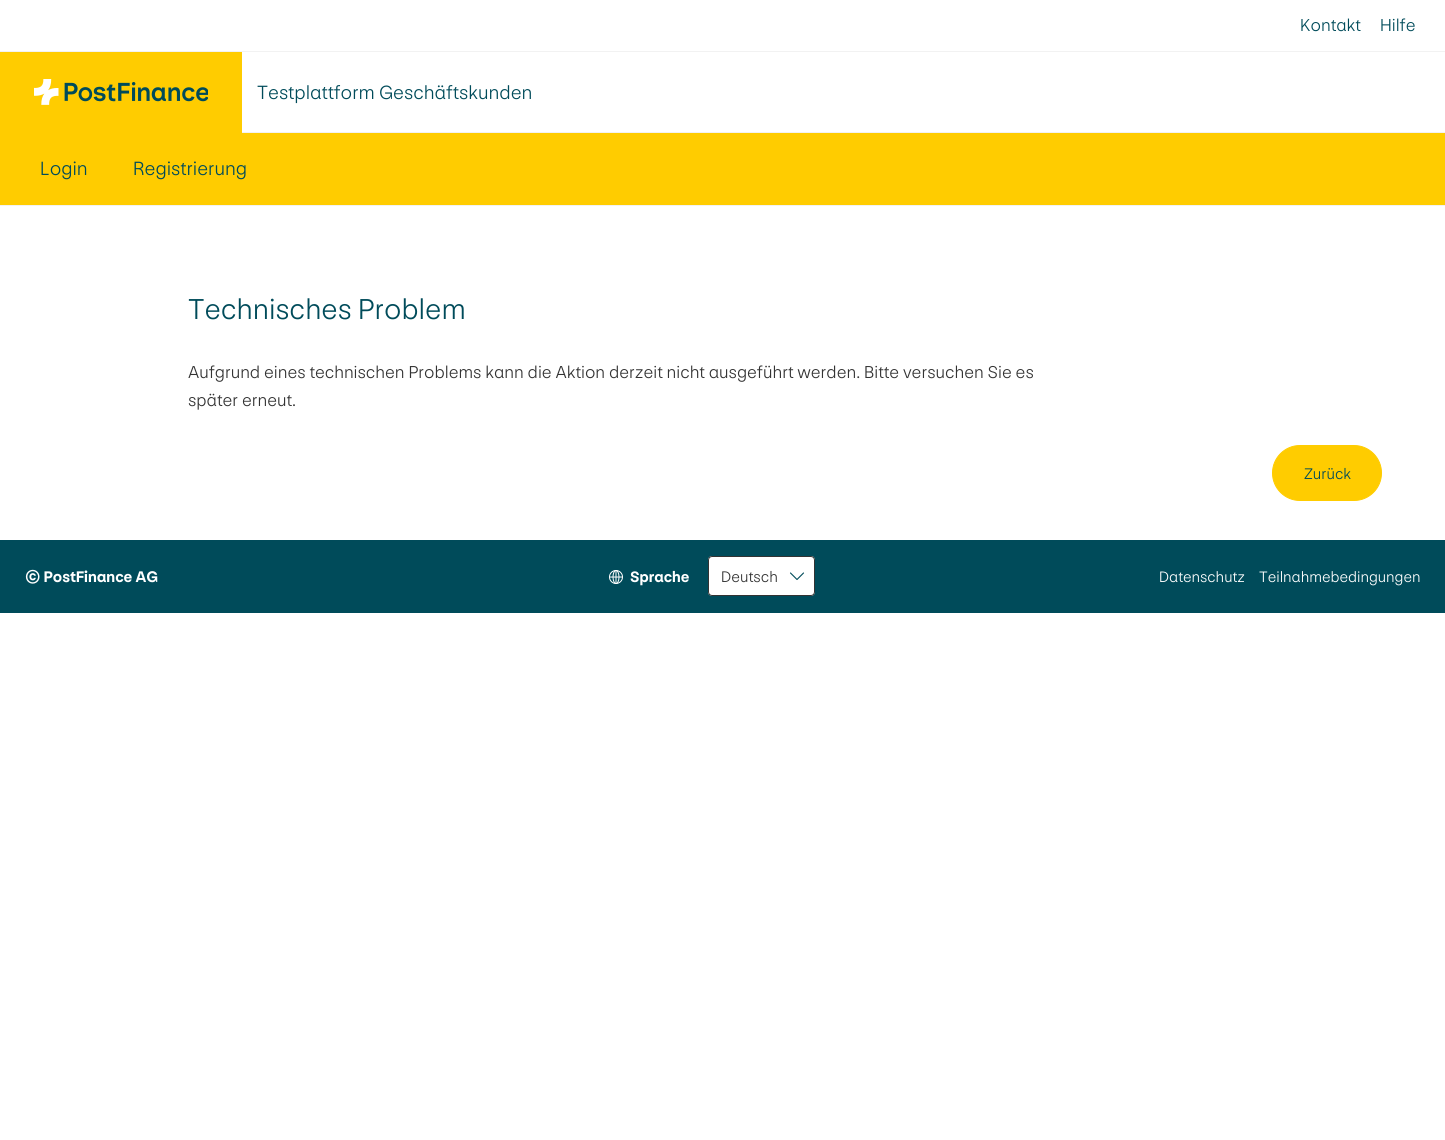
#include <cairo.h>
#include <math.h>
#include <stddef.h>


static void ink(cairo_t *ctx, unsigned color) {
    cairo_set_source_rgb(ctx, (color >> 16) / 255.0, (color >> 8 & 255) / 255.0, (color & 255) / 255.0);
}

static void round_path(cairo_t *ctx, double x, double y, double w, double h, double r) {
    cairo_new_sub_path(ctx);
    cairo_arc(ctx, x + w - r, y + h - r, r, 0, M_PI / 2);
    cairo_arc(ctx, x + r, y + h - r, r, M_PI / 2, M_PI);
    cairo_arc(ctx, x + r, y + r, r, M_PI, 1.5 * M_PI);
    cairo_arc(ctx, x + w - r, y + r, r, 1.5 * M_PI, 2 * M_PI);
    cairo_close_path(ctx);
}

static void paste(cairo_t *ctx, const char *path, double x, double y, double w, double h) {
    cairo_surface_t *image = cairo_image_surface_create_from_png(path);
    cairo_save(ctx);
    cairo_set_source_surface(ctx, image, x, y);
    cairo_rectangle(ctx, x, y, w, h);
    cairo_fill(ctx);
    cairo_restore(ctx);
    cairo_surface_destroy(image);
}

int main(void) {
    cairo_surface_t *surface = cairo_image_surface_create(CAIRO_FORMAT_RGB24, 1445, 1140);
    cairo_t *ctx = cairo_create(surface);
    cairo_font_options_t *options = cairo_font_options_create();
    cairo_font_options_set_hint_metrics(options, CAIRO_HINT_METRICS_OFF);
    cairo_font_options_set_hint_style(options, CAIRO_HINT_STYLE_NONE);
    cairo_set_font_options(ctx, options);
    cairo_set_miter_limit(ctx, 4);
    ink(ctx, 0xFFFFFF);
    cairo_paint(ctx);
    ink(ctx, 0xF2F2F2);
    cairo_rectangle(ctx, 0, 205, 1445, 1);
    cairo_fill(ctx);
    cairo_rectangle(ctx, 0, 51, 1445, 1);
    cairo_fill(ctx);
    cairo_select_font_face(ctx, "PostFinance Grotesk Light", CAIRO_FONT_SLANT_NORMAL, CAIRO_FONT_WEIGHT_NORMAL);
    cairo_set_font_size(ctx, 18);
    ink(ctx, 0x004B5A);
    cairo_move_to(ctx, 1300, 31);
    cairo_show_text(ctx, "Kontakt");
    cairo_move_to(ctx, 1380, 31);
    cairo_show_text(ctx, "Hilfe");
    ink(ctx, 0xF2F2F2);
    cairo_rectangle(ctx, 242, 132, 1203, 1);
    cairo_fill(ctx);
    ink(ctx, 0xFFCC00);
    cairo_rectangle(ctx, 0, 52, 242, 81);
    cairo_fill(ctx);
    paste(ctx, "media/1.png", 34, 79, 174, 26);
    cairo_set_font_size(ctx, 20);
    ink(ctx, 0x004B5A);
    cairo_move_to(ctx, 257, 99);
    cairo_show_text(ctx, "Testplattform Geschäftskunden");
    ink(ctx, 0xFFCC00);
    cairo_rectangle(ctx, 0, 133, 1445, 72);
    cairo_fill(ctx);
    ink(ctx, 0x004B5A);
    cairo_move_to(ctx, 40, 175);
    cairo_show_text(ctx, "Login");
    cairo_move_to(ctx, 133, 175);
    cairo_show_text(ctx, "Registrierung");
    cairo_set_font_size(ctx, 30);
    cairo_move_to(ctx, 188, 319);
    cairo_show_text(ctx, "Technisches Problem");
    cairo_set_font_size(ctx, 18);
    ink(ctx, 0x333333);
    cairo_move_to(ctx, 188, 378);
    cairo_show_text(ctx, "Aufgrund eines technischen Problems kann die Aktion derzeit nicht ausgeführt werden. Bitte versuchen Sie es");
    cairo_move_to(ctx, 188, 406);
    cairo_show_text(ctx, "später erneut.");
    ink(ctx, 0xFFCC00);
    round_path(ctx, 1272.5, 445.5, 109, 55, 27.5);
    cairo_fill_preserve(ctx);
    cairo_set_line_width(ctx, 1);
    cairo_stroke(ctx);
    cairo_set_font_size(ctx, 16);
    ink(ctx, 0x004B5A);
    cairo_move_to(ctx, 1304, 479);
    cairo_show_text(ctx, "Zurück");
    cairo_rectangle(ctx, 0, 540, 1445, 73);
    cairo_fill(ctx);
    cairo_select_font_face(ctx, "PostFinance Grotesk", CAIRO_FONT_SLANT_NORMAL, CAIRO_FONT_WEIGHT_BOLD);
    ink(ctx, 0xFFFFFF);
    cairo_move_to(ctx, 25, 582);
    cairo_show_text(ctx, "© PostFinance AG");
    paste(ctx, "media/2.png", 609, 570, 14, 14);
    cairo_set_font_size(ctx, 15.75);
    cairo_move_to(ctx, 630, 582);
    cairo_show_text(ctx, "Sprache");
    round_path(ctx, 708, 556, 107, 40, 4);
    cairo_fill(ctx);
    cairo_new_path(ctx);
    cairo_move_to(ctx, 803.5, 573);
    cairo_line_to(ctx, 797, 579.5);
    cairo_line_to(ctx, 790.5, 573);
    ink(ctx, 0x004B5A);
    cairo_set_line_width(ctx, 1.1);
    cairo_set_line_cap(ctx, CAIRO_LINE_CAP_ROUND);
    cairo_set_line_join(ctx, CAIRO_LINE_JOIN_ROUND);
    cairo_stroke(ctx);
    round_path(ctx, 708.5, 556.5, 106, 39, 3.5);
    ink(ctx, 0x333333);
    cairo_set_line_width(ctx, 1);
    cairo_set_line_cap(ctx, CAIRO_LINE_CAP_BUTT);
    cairo_set_line_join(ctx, CAIRO_LINE_JOIN_MITER);
    cairo_stroke(ctx);
    cairo_select_font_face(ctx, "PostFinance Grotesk Light", CAIRO_FONT_SLANT_NORMAL, CAIRO_FONT_WEIGHT_NORMAL);
    cairo_set_font_size(ctx, 16);
    cairo_move_to(ctx, 721, 582);
    cairo_show_text(ctx, "Deutsch");
    cairo_set_font_size(ctx, 15.75);
    ink(ctx, 0xFFFFFF);
    cairo_move_to(ctx, 1159, 582);
    cairo_show_text(ctx, "Datenschutz");
    cairo_move_to(ctx, 1259, 582);
    cairo_show_text(ctx, "Teilnahmebedingungen");
    cairo_surface_write_to_png(surface, "image.png");
    cairo_font_options_destroy(options);
    cairo_destroy(ctx);
    cairo_surface_destroy(surface);
    return 0;
}
